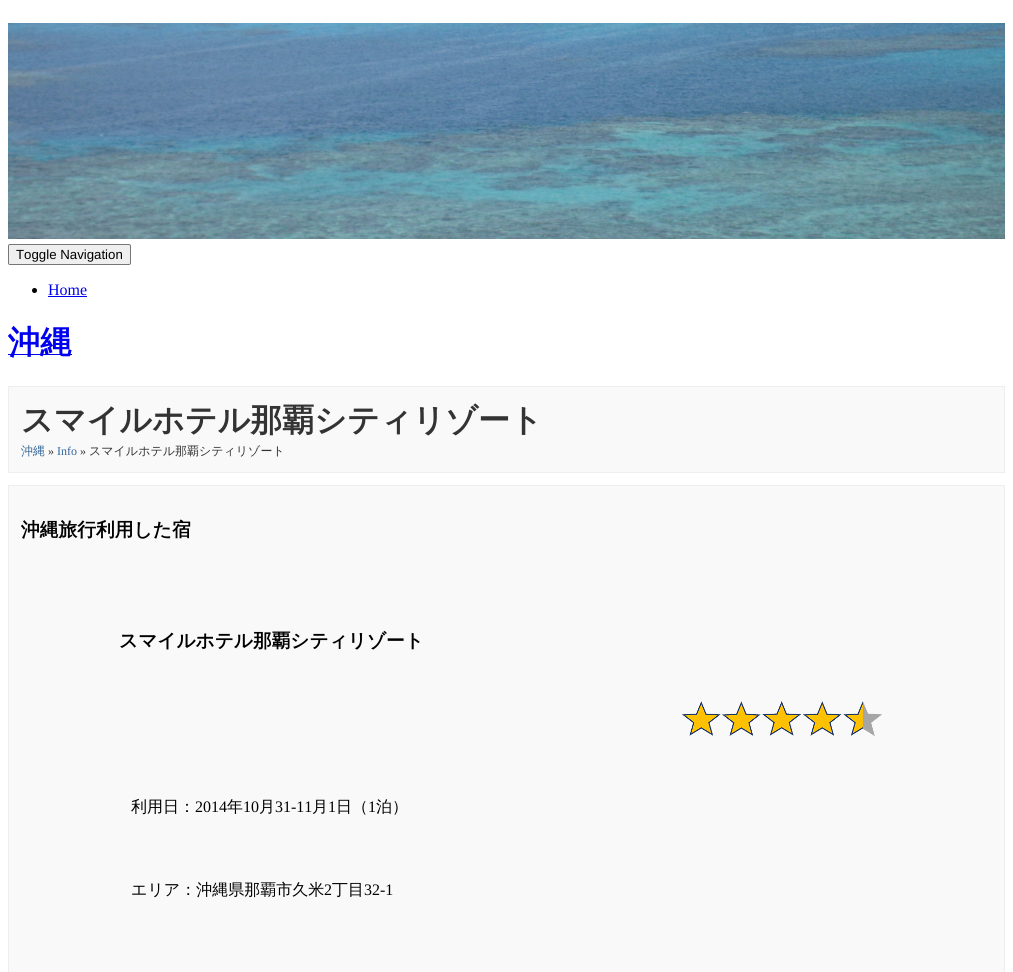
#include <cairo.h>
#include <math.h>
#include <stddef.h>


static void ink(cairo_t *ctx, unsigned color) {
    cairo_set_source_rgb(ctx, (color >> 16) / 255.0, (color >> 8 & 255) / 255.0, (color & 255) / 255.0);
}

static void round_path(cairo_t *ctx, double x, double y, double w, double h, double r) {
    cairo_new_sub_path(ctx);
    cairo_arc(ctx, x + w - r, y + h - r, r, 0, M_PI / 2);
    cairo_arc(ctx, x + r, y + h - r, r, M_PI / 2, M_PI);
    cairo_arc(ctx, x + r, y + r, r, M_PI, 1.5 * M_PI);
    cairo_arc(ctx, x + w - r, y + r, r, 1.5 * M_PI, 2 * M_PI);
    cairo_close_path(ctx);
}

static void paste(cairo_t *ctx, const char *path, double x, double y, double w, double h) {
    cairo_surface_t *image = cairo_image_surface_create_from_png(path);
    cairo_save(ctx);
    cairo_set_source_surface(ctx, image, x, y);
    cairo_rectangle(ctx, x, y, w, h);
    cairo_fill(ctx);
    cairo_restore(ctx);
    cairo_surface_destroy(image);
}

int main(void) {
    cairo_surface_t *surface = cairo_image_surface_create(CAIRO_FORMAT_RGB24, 1013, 972);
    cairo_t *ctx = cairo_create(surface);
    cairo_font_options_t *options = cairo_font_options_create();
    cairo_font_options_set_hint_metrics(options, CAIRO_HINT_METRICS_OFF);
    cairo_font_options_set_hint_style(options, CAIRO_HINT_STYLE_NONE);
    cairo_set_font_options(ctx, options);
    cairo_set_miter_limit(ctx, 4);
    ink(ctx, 0xFFFFFF);
    cairo_paint(ctx);
    paste(ctx, "media/1.png", 8, 23, 997, 216);
    ink(ctx, 0xEFEFEF);
    round_path(ctx, 8.5, 244.5, 122, 20, 1.5);
    cairo_fill_preserve(ctx);
    ink(ctx, 0x767676);
    cairo_set_line_width(ctx, 1);
    cairo_stroke(ctx);
    cairo_select_font_face(ctx, "Liberation Sans", CAIRO_FONT_SLANT_NORMAL, CAIRO_FONT_WEIGHT_NORMAL);
    cairo_set_font_size(ctx, 13.25);
    ink(ctx, 0x000000);
    cairo_move_to(ctx, 16, 259);
    cairo_show_text(ctx, "Toggle Navigation");
    cairo_new_path(ctx);
    cairo_arc(ctx, 34.5, 290.5, 2.5, 0, 2 * M_PI);
    cairo_fill(ctx);
    cairo_select_font_face(ctx, "Liberation Serif", CAIRO_FONT_SLANT_NORMAL, CAIRO_FONT_WEIGHT_NORMAL);
    cairo_set_font_size(ctx, 16);
    ink(ctx, 0x0000EE);
    cairo_move_to(ctx, 48, 295);
    cairo_show_text(ctx, "Home");
    cairo_rectangle(ctx, 48, 296, 39, 1);
    cairo_fill(ctx);
    cairo_rectangle(ctx, 8, 354, 64, 1);
    cairo_fill(ctx);
    cairo_select_font_face(ctx, "WenQuanYi Zen Hei", CAIRO_FONT_SLANT_NORMAL, CAIRO_FONT_WEIGHT_BOLD);
    cairo_set_font_size(ctx, 32);
    cairo_move_to(ctx, 8, 353);
    cairo_show_text(ctx, "沖縄");
    ink(ctx, 0xF9F9F9);
    cairo_rectangle(ctx, 8.5, 386.5, 996, 86);
    cairo_fill_preserve(ctx);
    ink(ctx, 0xEEEEEE);
    cairo_stroke(ctx);
    ink(ctx, 0x333333);
    cairo_move_to(ctx, 21, 431);
    cairo_show_text(ctx, "スマイルホテル那覇シティリゾート");
    cairo_select_font_face(ctx, "WenQuanYi Zen Hei Medium", CAIRO_FONT_SLANT_NORMAL, CAIRO_FONT_WEIGHT_NORMAL);
    cairo_set_font_size(ctx, 12);
    ink(ctx, 0x336699);
    cairo_move_to(ctx, 21, 455);
    cairo_show_text(ctx, "沖縄");
    cairo_select_font_face(ctx, "Liberation Serif", CAIRO_FONT_SLANT_NORMAL, CAIRO_FONT_WEIGHT_NORMAL);
    ink(ctx, 0x333333);
    cairo_move_to(ctx, 48, 455);
    cairo_show_text(ctx, "»");
    ink(ctx, 0x336699);
    cairo_move_to(ctx, 57, 455);
    cairo_show_text(ctx, "Info");
    ink(ctx, 0x333333);
    cairo_move_to(ctx, 80, 455);
    cairo_show_text(ctx, "»");
    cairo_select_font_face(ctx, "WenQuanYi Zen Hei Medium", CAIRO_FONT_SLANT_NORMAL, CAIRO_FONT_WEIGHT_NORMAL);
    cairo_move_to(ctx, 89, 455);
    cairo_show_text(ctx, "スマイルホテル那覇シティリゾート");
    ink(ctx, 0xF9F9F9);
    cairo_rectangle(ctx, 8.5, 485.5, 996, 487);
    cairo_fill_preserve(ctx);
    ink(ctx, 0xEEEEEE);
    cairo_stroke(ctx);
    cairo_select_font_face(ctx, "WenQuanYi Zen Hei", CAIRO_FONT_SLANT_NORMAL, CAIRO_FONT_WEIGHT_BOLD);
    cairo_set_font_size(ctx, 18.75);
    ink(ctx, 0x000000);
    cairo_move_to(ctx, 21, 536);
    cairo_show_text(ctx, "沖縄旅行利用した宿");
    cairo_set_font_size(ctx, 18.7);
    cairo_move_to(ctx, 119, 647);
    cairo_show_text(ctx, "スマイルホテル那覇シティリゾート");
    paste(ctx, "media/2.png", 682, 701, 200, 35);
    cairo_select_font_face(ctx, "WenQuanYi Zen Hei Medium", CAIRO_FONT_SLANT_NORMAL, CAIRO_FONT_WEIGHT_NORMAL);
    cairo_set_font_size(ctx, 16);
    cairo_move_to(ctx, 131, 812);
    cairo_show_text(ctx, "利用日：");
    cairo_select_font_face(ctx, "Liberation Serif", CAIRO_FONT_SLANT_NORMAL, CAIRO_FONT_WEIGHT_NORMAL);
    cairo_move_to(ctx, 195, 812);
    cairo_show_text(ctx, "2014");
    cairo_select_font_face(ctx, "WenQuanYi Zen Hei Medium", CAIRO_FONT_SLANT_NORMAL, CAIRO_FONT_WEIGHT_NORMAL);
    cairo_move_to(ctx, 227, 812);
    cairo_show_text(ctx, "年");
    cairo_select_font_face(ctx, "Liberation Serif", CAIRO_FONT_SLANT_NORMAL, CAIRO_FONT_WEIGHT_NORMAL);
    cairo_move_to(ctx, 243, 812);
    cairo_show_text(ctx, "10");
    cairo_select_font_face(ctx, "WenQuanYi Zen Hei Medium", CAIRO_FONT_SLANT_NORMAL, CAIRO_FONT_WEIGHT_NORMAL);
    cairo_move_to(ctx, 259, 812);
    cairo_show_text(ctx, "月");
    cairo_select_font_face(ctx, "Liberation Serif", CAIRO_FONT_SLANT_NORMAL, CAIRO_FONT_WEIGHT_NORMAL);
    cairo_move_to(ctx, 275, 812);
    cairo_show_text(ctx, "31-11");
    cairo_select_font_face(ctx, "WenQuanYi Zen Hei Medium", CAIRO_FONT_SLANT_NORMAL, CAIRO_FONT_WEIGHT_NORMAL);
    cairo_move_to(ctx, 312, 812);
    cairo_show_text(ctx, "月");
    cairo_select_font_face(ctx, "Liberation Serif", CAIRO_FONT_SLANT_NORMAL, CAIRO_FONT_WEIGHT_NORMAL);
    cairo_move_to(ctx, 328, 812);
    cairo_show_text(ctx, "1");
    cairo_select_font_face(ctx, "WenQuanYi Zen Hei Medium", CAIRO_FONT_SLANT_NORMAL, CAIRO_FONT_WEIGHT_NORMAL);
    cairo_move_to(ctx, 336, 812);
    cairo_show_text(ctx, "日（");
    cairo_select_font_face(ctx, "Liberation Serif", CAIRO_FONT_SLANT_NORMAL, CAIRO_FONT_WEIGHT_NORMAL);
    cairo_move_to(ctx, 368, 812);
    cairo_show_text(ctx, "1");
    cairo_select_font_face(ctx, "WenQuanYi Zen Hei Medium", CAIRO_FONT_SLANT_NORMAL, CAIRO_FONT_WEIGHT_NORMAL);
    cairo_move_to(ctx, 376, 812);
    cairo_show_text(ctx, "泊）");
    cairo_move_to(ctx, 131, 895);
    cairo_show_text(ctx, "エリア：沖縄県那覇市久米");
    cairo_select_font_face(ctx, "Liberation Serif", CAIRO_FONT_SLANT_NORMAL, CAIRO_FONT_WEIGHT_NORMAL);
    cairo_move_to(ctx, 324, 895);
    cairo_show_text(ctx, "2");
    cairo_select_font_face(ctx, "WenQuanYi Zen Hei Medium", CAIRO_FONT_SLANT_NORMAL, CAIRO_FONT_WEIGHT_NORMAL);
    cairo_move_to(ctx, 332, 895);
    cairo_show_text(ctx, "丁目");
    cairo_select_font_face(ctx, "Liberation Serif", CAIRO_FONT_SLANT_NORMAL, CAIRO_FONT_WEIGHT_NORMAL);
    cairo_move_to(ctx, 364, 895);
    cairo_show_text(ctx, "32-1");
    cairo_surface_write_to_png(surface, "image.png");
    cairo_font_options_destroy(options);
    cairo_destroy(ctx);
    cairo_surface_destroy(surface);
    return 0;
}
